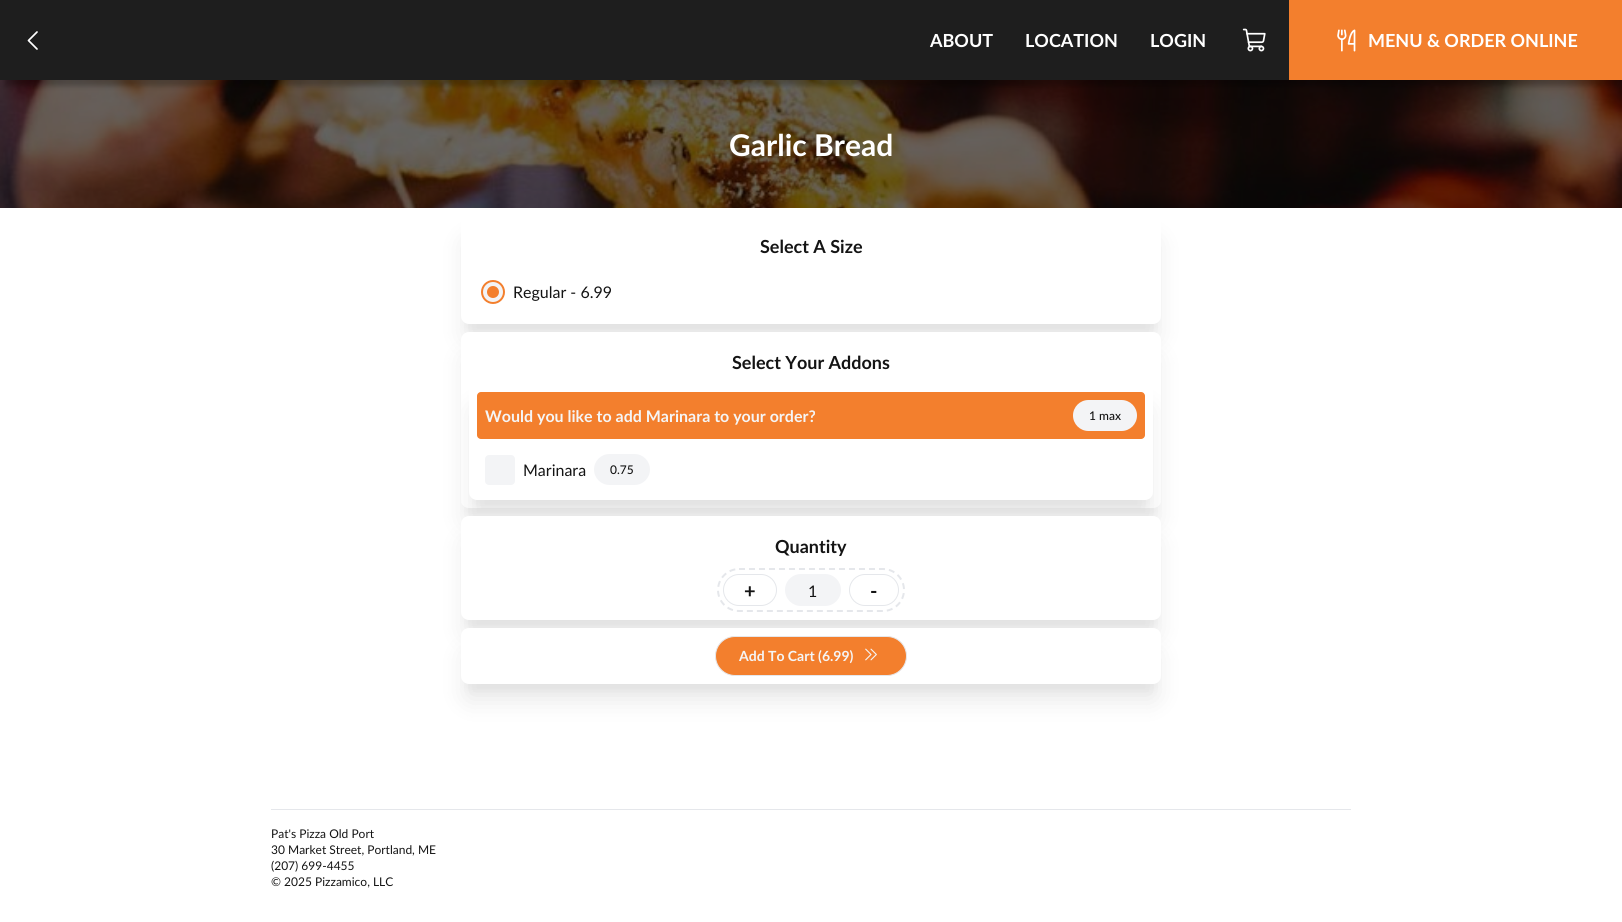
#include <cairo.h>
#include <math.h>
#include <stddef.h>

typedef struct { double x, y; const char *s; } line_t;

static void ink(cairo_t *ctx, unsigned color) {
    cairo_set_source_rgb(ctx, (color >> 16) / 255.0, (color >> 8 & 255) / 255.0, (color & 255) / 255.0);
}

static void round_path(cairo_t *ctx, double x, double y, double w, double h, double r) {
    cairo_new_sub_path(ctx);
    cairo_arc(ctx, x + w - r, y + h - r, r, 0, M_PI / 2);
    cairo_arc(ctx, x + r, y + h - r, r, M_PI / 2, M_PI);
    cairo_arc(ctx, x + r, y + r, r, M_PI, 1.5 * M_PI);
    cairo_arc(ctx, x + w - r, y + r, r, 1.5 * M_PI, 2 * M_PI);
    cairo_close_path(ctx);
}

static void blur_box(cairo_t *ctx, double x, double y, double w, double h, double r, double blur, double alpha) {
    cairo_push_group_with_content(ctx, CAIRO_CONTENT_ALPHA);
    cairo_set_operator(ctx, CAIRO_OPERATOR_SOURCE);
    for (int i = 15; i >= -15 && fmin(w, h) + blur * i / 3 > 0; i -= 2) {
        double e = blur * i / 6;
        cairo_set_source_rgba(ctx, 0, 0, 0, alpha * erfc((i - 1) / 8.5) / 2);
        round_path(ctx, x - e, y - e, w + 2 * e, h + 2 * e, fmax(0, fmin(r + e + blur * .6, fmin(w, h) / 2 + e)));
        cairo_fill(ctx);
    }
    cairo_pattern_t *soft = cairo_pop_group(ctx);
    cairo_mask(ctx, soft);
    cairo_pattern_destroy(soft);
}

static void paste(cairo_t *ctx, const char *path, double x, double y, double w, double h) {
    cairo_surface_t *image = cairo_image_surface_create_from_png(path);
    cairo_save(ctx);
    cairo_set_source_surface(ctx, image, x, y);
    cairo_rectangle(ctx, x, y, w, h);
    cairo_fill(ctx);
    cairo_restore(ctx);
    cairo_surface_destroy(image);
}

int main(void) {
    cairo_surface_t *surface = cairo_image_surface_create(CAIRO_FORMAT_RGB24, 1622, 922);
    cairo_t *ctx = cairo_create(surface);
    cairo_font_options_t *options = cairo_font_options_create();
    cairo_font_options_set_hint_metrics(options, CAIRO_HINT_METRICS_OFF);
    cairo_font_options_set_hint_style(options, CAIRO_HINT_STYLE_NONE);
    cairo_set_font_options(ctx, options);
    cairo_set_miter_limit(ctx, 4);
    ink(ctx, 0xFFFFFF);
    cairo_paint(ctx);
    ink(ctx, 0x000000);
    blur_box(ctx, 466, 241, 690, 98, 3, 12.5, 0.1);
    paste(ctx, "media/3.png", 0, 80, 1622, 128);
    blur_box(ctx, 4, 14, 1614, 72, 0, 2.5, 0.25);
    ink(ctx, 0x1E1E1E);
    cairo_rectangle(ctx, 0, 0, 1289, 80);
    cairo_fill(ctx);
    cairo_new_path(ctx);
    cairo_move_to(ctx, 37, 49);
    cairo_line_to(ctx, 28.5, 40.5);
    cairo_line_to(ctx, 37, 32);
    ink(ctx, 0xFFFFFF);
    cairo_set_line_width(ctx, 1.7);
    cairo_set_line_cap(ctx, CAIRO_LINE_CAP_ROUND);
    cairo_set_line_join(ctx, CAIRO_LINE_JOIN_ROUND);
    cairo_stroke(ctx);
    cairo_select_font_face(ctx, "Lato", CAIRO_FONT_SLANT_NORMAL, CAIRO_FONT_WEIGHT_BOLD);
    cairo_set_font_size(ctx, 18);
    {
        static const line_t items[] = {
            {930, 47, "ABOUT"},
            {1025, 47, "LOCATION"},
            {1150, 47, "LOGIN"},
        };
        for (size_t i = 0; i < sizeof items / sizeof *items; i++) {
            cairo_move_to(ctx, items[i].x, items[i].y);
            cairo_show_text(ctx, items[i].s);
        }
    }
    paste(ctx, "media/1.png", 1242, 28, 24, 24);
    ink(ctx, 0xF37F2D);
    cairo_rectangle(ctx, 1289, 0, 333, 80);
    cairo_fill(ctx);
    paste(ctx, "media/2.png", 1337, 29, 19, 23);
    ink(ctx, 0xFFFFFF);
    cairo_move_to(ctx, 1368, 47);
    cairo_show_text(ctx, "MENU & ORDER ONLINE");
    cairo_set_font_size(ctx, 30);
    cairo_move_to(ctx, 729, 156);
    cairo_show_text(ctx, "Garlic Bread");
    ink(ctx, 0x000000);
    blur_box(ctx, 466, 231, 690, 98, 3, 5, 0.04);
    ink(ctx, 0xFFFFFF);
    round_path(ctx, 461, 216, 700, 108, 8);
    cairo_fill(ctx);
    cairo_set_font_size(ctx, 18);
    ink(ctx, 0x141414);
    cairo_move_to(ctx, 760, 253);
    cairo_show_text(ctx, "Select A Size");
    ink(ctx, 0xF3F4F6);
    cairo_new_path(ctx);
    cairo_arc(ctx, 493, 292, 11, 0, 2 * M_PI);
    cairo_fill_preserve(ctx);
    ink(ctx, 0xF37F2D);
    cairo_set_line_width(ctx, 2);
    cairo_set_line_cap(ctx, CAIRO_LINE_CAP_BUTT);
    cairo_set_line_join(ctx, CAIRO_LINE_JOIN_MITER);
    cairo_stroke(ctx);
    cairo_arc(ctx, 493, 292, 6, 0, 2 * M_PI);
    cairo_fill(ctx);
    cairo_select_font_face(ctx, "Lato", CAIRO_FONT_SLANT_NORMAL, CAIRO_FONT_WEIGHT_NORMAL);
    cairo_set_font_size(ctx, 16);
    ink(ctx, 0x141414);
    cairo_move_to(ctx, 513, 298);
    cairo_show_text(ctx, "Regular - 6.99");
    ink(ctx, 0x000000);
    blur_box(ctx, 466, 347, 690, 166, 3, 5, 0.04);
    blur_box(ctx, 466, 357, 690, 166, 3, 12.5, 0.1);
    ink(ctx, 0xFFFFFF);
    round_path(ctx, 461, 332, 700, 176, 8);
    cairo_fill(ctx);
    cairo_select_font_face(ctx, "Lato", CAIRO_FONT_SLANT_NORMAL, CAIRO_FONT_WEIGHT_BOLD);
    cairo_set_font_size(ctx, 18);
    ink(ctx, 0x141414);
    cairo_move_to(ctx, 732, 369);
    cairo_show_text(ctx, "Select Your Addons");
    ink(ctx, 0x000000);
    blur_box(ctx, 474, 399, 674, 106, 3, 5, 0.04);
    cairo_save(ctx);
    round_path(ctx, 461, 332, 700, 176, 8);
    cairo_clip(ctx);
    blur_box(ctx, 474, 409, 674, 106, 3, 12.5, 0.1);
    cairo_restore(ctx);
    ink(ctx, 0xFFFFFF);
    round_path(ctx, 469, 384, 684, 116, 8);
    cairo_fill(ctx);
    ink(ctx, 0xF37F2D);
    round_path(ctx, 477, 392, 668, 47, 4);
    cairo_fill(ctx);
    cairo_set_font_size(ctx, 16);
    ink(ctx, 0xF5F5F5);
    cairo_move_to(ctx, 485, 422);
    cairo_show_text(ctx, "Would you like to add Marinara to your order?");
    ink(ctx, 0xF3F4F6);
    round_path(ctx, 1073, 400, 64, 31, 15.5);
    cairo_fill(ctx);
    cairo_select_font_face(ctx, "Lato Medium", CAIRO_FONT_SLANT_NORMAL, CAIRO_FONT_WEIGHT_NORMAL);
    cairo_set_font_size(ctx, 12);
    ink(ctx, 0x141414);
    cairo_move_to(ctx, 1089, 420);
    cairo_show_text(ctx, "1 max");
    ink(ctx, 0xF3F4F6);
    round_path(ctx, 485, 455, 30, 30, 4);
    cairo_fill(ctx);
    cairo_select_font_face(ctx, "Lato", CAIRO_FONT_SLANT_NORMAL, CAIRO_FONT_WEIGHT_NORMAL);
    cairo_set_font_size(ctx, 16);
    ink(ctx, 0x141414);
    cairo_move_to(ctx, 523, 476);
    cairo_show_text(ctx, "Marinara");
    ink(ctx, 0xF3F4F6);
    round_path(ctx, 594, 454, 56, 31, 15.5);
    cairo_fill(ctx);
    cairo_select_font_face(ctx, "Lato Medium", CAIRO_FONT_SLANT_NORMAL, CAIRO_FONT_WEIGHT_NORMAL);
    cairo_set_font_size(ctx, 12);
    ink(ctx, 0x141414);
    cairo_move_to(ctx, 610, 474);
    cairo_show_text(ctx, "0.75");
    ink(ctx, 0x000000);
    blur_box(ctx, 466, 531, 690, 94, 3, 5, 0.04);
    blur_box(ctx, 466, 541, 690, 94, 3, 12.5, 0.1);
    ink(ctx, 0xFFFFFF);
    round_path(ctx, 461, 516, 700, 104, 8);
    cairo_fill(ctx);
    cairo_select_font_face(ctx, "Lato", CAIRO_FONT_SLANT_NORMAL, CAIRO_FONT_WEIGHT_BOLD);
    cairo_set_font_size(ctx, 18);
    ink(ctx, 0x141414);
    cairo_move_to(ctx, 775, 553);
    cairo_show_text(ctx, "Quantity");
    cairo_new_path(ctx);
    cairo_move_to(ctx, 739, 569);
    cairo_line_to(ctx, 883, 569);
    cairo_curve_to(ctx, 894.5, 569, 904, 578.5, 904, 590);
    cairo_curve_to(ctx, 904, 601.5, 894.5, 611, 883, 611);
    cairo_line_to(ctx, 739, 611);
    cairo_curve_to(ctx, 727.5, 611, 718, 601.5, 718, 590);
    cairo_curve_to(ctx, 718, 578.5, 727.5, 569, 739, 569);
    cairo_close_path(ctx);
    ink(ctx, 0xE5E7EB);
    cairo_set_dash(ctx, (double[]){6, 4}, 2, 0);
    cairo_stroke(ctx);
    round_path(ctx, 723.5, 574.5, 53, 31, 15.5);
    cairo_set_line_width(ctx, 1);
    cairo_set_dash(ctx, NULL, 0, 0);
    cairo_stroke(ctx);
    cairo_set_font_size(ctx, 20);
    ink(ctx, 0x141414);
    cairo_move_to(ctx, 744, 598);
    cairo_show_text(ctx, "+");
    ink(ctx, 0xF3F4F6);
    round_path(ctx, 785, 574, 56, 32, 16);
    cairo_fill(ctx);
    cairo_select_font_face(ctx, "Lato", CAIRO_FONT_SLANT_NORMAL, CAIRO_FONT_WEIGHT_NORMAL);
    cairo_set_font_size(ctx, 16);
    ink(ctx, 0x141414);
    cairo_move_to(ctx, 808, 597);
    cairo_show_text(ctx, "1");
    round_path(ctx, 849.5, 574.5, 49, 31, 15.5);
    ink(ctx, 0xE5E7EB);
    cairo_stroke(ctx);
    cairo_select_font_face(ctx, "Lato", CAIRO_FONT_SLANT_NORMAL, CAIRO_FONT_WEIGHT_BOLD);
    cairo_set_font_size(ctx, 20);
    ink(ctx, 0x141414);
    cairo_move_to(ctx, 870, 598);
    cairo_show_text(ctx, "-");
    ink(ctx, 0x000000);
    blur_box(ctx, 466, 643, 690, 46, 3, 5, 0.04);
    blur_box(ctx, 466, 653, 690, 46, 3, 12.5, 0.1);
    ink(ctx, 0xFFFFFF);
    round_path(ctx, 461, 628, 700, 56, 8);
    cairo_fill(ctx);
    ink(ctx, 0xF37F2D);
    round_path(ctx, 715.5, 636.5, 191, 39, 19.5);
    cairo_fill_preserve(ctx);
    ink(ctx, 0xE5E7EB);
    cairo_stroke(ctx);
    cairo_set_font_size(ctx, 14);
    ink(ctx, 0xF5F5F5);
    cairo_move_to(ctx, 739, 661);
    cairo_show_text(ctx, "Add To Cart (6.99)");
    paste(ctx, "media/4.png", 865, 648, 12, 13);
    ink(ctx, 0xE5E7EB);
    cairo_rectangle(ctx, 271, 809, 1080, 1);
    cairo_fill(ctx);
    cairo_select_font_face(ctx, "Lato", CAIRO_FONT_SLANT_NORMAL, CAIRO_FONT_WEIGHT_NORMAL);
    cairo_set_font_size(ctx, 12);
    ink(ctx, 0x141414);
    {
        static const line_t items[] = {
            {271, 838, "Pat's Pizza Old Port"},
            {271, 854, "30 Market Street, Portland, ME"},
            {271, 870, "(207) 699-4455"},
            {271, 886, "© 2025 Pizzamico, LLC"},
        };
        for (size_t i = 0; i < sizeof items / sizeof *items; i++) {
            cairo_move_to(ctx, items[i].x, items[i].y);
            cairo_show_text(ctx, items[i].s);
        }
    }
    cairo_surface_write_to_png(surface, "image.png");
    cairo_font_options_destroy(options);
    cairo_destroy(ctx);
    cairo_surface_destroy(surface);
    return 0;
}
